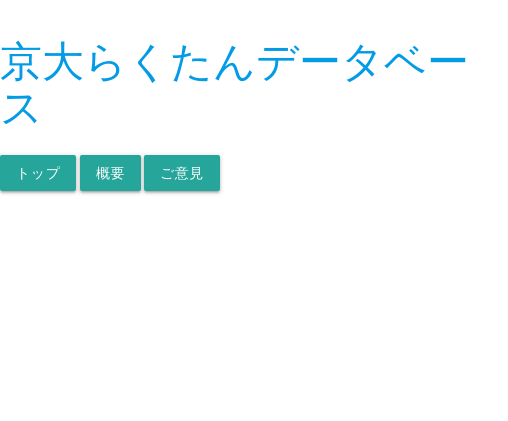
#include <cairo.h>
#include <math.h>
#include <stddef.h>


static void ink(cairo_t *ctx, unsigned color) {
    cairo_set_source_rgb(ctx, (color >> 16) / 255.0, (color >> 8 & 255) / 255.0, (color & 255) / 255.0);
}

static void write_spaced(cairo_t *ctx, double x, double y, const char *s, double letter, double word) {
    cairo_move_to(ctx, x, y);
    while (*s) {
        char ch[5] = {0};
        int n = 0;
        do ch[n++] = *s++; while ((*s & 0xC0) == 0x80);
        cairo_show_text(ctx, ch);
        cairo_rel_move_to(ctx, letter + word * (*ch == ' '), 0);
    }
}

static void round_path(cairo_t *ctx, double x, double y, double w, double h, double r) {
    cairo_new_sub_path(ctx);
    cairo_arc(ctx, x + w - r, y + h - r, r, 0, M_PI / 2);
    cairo_arc(ctx, x + r, y + h - r, r, M_PI / 2, M_PI);
    cairo_arc(ctx, x + r, y + r, r, M_PI, 1.5 * M_PI);
    cairo_arc(ctx, x + w - r, y + r, r, 1.5 * M_PI, 2 * M_PI);
    cairo_close_path(ctx);
}

static void blur_box(cairo_t *ctx, double x, double y, double w, double h, double r, double blur, double alpha) {
    cairo_push_group_with_content(ctx, CAIRO_CONTENT_ALPHA);
    cairo_set_operator(ctx, CAIRO_OPERATOR_SOURCE);
    for (int i = 15; i >= -15 && fmin(w, h) + blur * i / 3 > 0; i -= 2) {
        double e = blur * i / 6;
        cairo_set_source_rgba(ctx, 0, 0, 0, alpha * erfc((i - 1) / 8.5) / 2);
        round_path(ctx, x - e, y - e, w + 2 * e, h + 2 * e, fmax(0, fmin(r + e + blur * .6, fmin(w, h) / 2 + e)));
        cairo_fill(ctx);
    }
    cairo_pattern_t *soft = cairo_pop_group(ctx);
    cairo_mask(ctx, soft);
    cairo_pattern_destroy(soft);
}

int main(void) {
    cairo_surface_t *surface = cairo_image_surface_create(CAIRO_FORMAT_RGB24, 508, 421);
    cairo_t *ctx = cairo_create(surface);
    cairo_font_options_t *options = cairo_font_options_create();
    cairo_font_options_set_hint_metrics(options, CAIRO_HINT_METRICS_OFF);
    cairo_font_options_set_hint_style(options, CAIRO_HINT_STYLE_NONE);
    cairo_set_font_options(ctx, options);
    cairo_set_miter_limit(ctx, 4);
    ink(ctx, 0xFFFFFF);
    cairo_paint(ctx);
    cairo_select_font_face(ctx, "WenQuanYi Zen Hei Medium", CAIRO_FONT_SLANT_NORMAL, CAIRO_FONT_WEIGHT_NORMAL);
    cairo_set_font_size(ctx, 42);
    ink(ctx, 0x039BE5);
    cairo_move_to(ctx, 0, 76);
    cairo_show_text(ctx, "京大らくたんデータベー");
    cairo_move_to(ctx, 0, 122);
    cairo_show_text(ctx, "ス");
    ink(ctx, 0x000000);
    blur_box(ctx, 0, 156, 76, 36, 2, 2.5, 0.2);
    blur_box(ctx, 2, 160, 72, 32, 0, 0.5, 0.12);
    blur_box(ctx, 0, 157, 76, 36, 2, 1, 0.14);
    ink(ctx, 0x26A69A);
    round_path(ctx, 0, 155, 76, 36, 2);
    cairo_fill(ctx);
    cairo_set_font_size(ctx, 14);
    ink(ctx, 0xFFFFFF);
    write_spaced(ctx, 16, 178, "トップ", 0.5, 0);
    ink(ctx, 0x000000);
    blur_box(ctx, 80, 156, 61, 36, 2, 2.5, 0.2);
    blur_box(ctx, 82, 160, 57, 32, 0, 0.5, 0.12);
    blur_box(ctx, 80, 157, 61, 36, 2, 1, 0.14);
    ink(ctx, 0x26A69A);
    round_path(ctx, 80, 155, 61, 36, 2);
    cairo_fill(ctx);
    ink(ctx, 0xFFFFFF);
    write_spaced(ctx, 96, 178, "概要", 0.5, 0);
    ink(ctx, 0x000000);
    blur_box(ctx, 144, 156, 76, 36, 2, 2.5, 0.2);
    blur_box(ctx, 146, 160, 72, 32, 0, 0.5, 0.12);
    blur_box(ctx, 144, 157, 76, 36, 2, 1, 0.14);
    ink(ctx, 0x26A69A);
    round_path(ctx, 144, 155, 76, 36, 2);
    cairo_fill(ctx);
    ink(ctx, 0xFFFFFF);
    write_spaced(ctx, 160, 178, "ご意見", 0.5, 0);
    cairo_surface_write_to_png(surface, "image.png");
    cairo_font_options_destroy(options);
    cairo_destroy(ctx);
    cairo_surface_destroy(surface);
    return 0;
}
